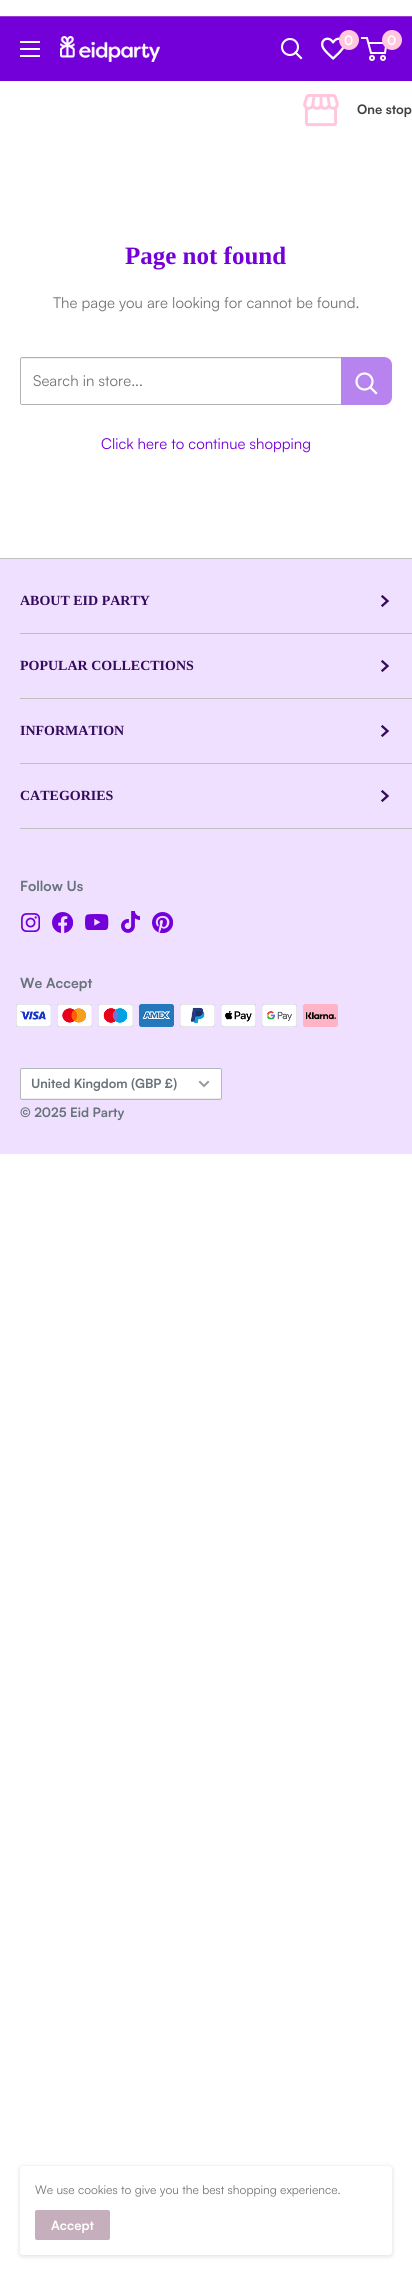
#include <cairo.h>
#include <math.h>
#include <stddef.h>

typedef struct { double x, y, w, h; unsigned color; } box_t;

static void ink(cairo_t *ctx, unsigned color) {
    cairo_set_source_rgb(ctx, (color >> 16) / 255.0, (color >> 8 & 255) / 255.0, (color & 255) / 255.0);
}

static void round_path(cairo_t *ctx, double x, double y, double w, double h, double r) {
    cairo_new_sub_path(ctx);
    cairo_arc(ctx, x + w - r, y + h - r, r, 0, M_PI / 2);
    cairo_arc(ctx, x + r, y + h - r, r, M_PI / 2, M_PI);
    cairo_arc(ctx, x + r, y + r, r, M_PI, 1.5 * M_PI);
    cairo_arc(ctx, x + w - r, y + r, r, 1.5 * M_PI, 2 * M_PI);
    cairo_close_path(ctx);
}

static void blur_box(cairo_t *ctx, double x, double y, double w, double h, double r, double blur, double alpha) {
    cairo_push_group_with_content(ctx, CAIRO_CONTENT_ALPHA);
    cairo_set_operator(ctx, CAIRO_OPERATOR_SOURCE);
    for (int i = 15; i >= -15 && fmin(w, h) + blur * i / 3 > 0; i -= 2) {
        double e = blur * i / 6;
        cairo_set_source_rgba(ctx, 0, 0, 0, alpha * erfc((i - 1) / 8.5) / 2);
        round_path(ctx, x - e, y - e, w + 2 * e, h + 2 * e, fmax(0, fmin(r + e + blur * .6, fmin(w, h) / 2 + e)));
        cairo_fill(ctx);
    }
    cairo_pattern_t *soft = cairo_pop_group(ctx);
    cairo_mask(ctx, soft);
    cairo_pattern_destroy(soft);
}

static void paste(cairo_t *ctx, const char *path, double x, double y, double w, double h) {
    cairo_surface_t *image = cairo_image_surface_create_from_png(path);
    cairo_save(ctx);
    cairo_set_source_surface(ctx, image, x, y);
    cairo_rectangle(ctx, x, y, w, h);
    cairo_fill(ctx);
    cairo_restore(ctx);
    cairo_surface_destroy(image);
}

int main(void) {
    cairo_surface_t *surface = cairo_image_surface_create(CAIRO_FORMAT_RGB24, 412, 2280);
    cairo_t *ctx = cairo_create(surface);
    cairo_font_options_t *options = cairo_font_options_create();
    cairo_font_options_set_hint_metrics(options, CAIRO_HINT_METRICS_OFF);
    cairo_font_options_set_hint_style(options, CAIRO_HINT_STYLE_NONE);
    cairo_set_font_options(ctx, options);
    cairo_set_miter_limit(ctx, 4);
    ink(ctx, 0xFFFFFF);
    cairo_paint(ctx);
    ink(ctx, 0x9E3BDB);
    cairo_rectangle(ctx, 0, 16, 412, 1);
    cairo_fill(ctx);
    ink(ctx, 0x7400D9);
    cairo_rectangle(ctx, 0, 17, 412, 64);
    cairo_fill(ctx);
    paste(ctx, "media/1.png", 20, 41, 20, 16);
    paste(ctx, "media/2.png", 60, 36, 100, 26);
    cairo_new_path(ctx);
    cairo_move_to(ctx, 301, 58);
    cairo_line_to(ctx, 295.5, 52.5);
    ink(ctx, 0xFFFFFF);
    cairo_set_line_width(ctx, 2.1);
    cairo_set_line_cap(ctx, CAIRO_LINE_CAP_SQUARE);
    cairo_stroke(ctx);
    cairo_arc(ctx, 290, 47, 8, 0, 2 * M_PI);
    cairo_set_line_cap(ctx, CAIRO_LINE_CAP_BUTT);
    cairo_stroke(ctx);
    paste(ctx, "media/3.png", 321, 37, 24, 23);
    ink(ctx, 0xFFC6DE);
    cairo_arc(ctx, 349, 40, 10, 0, 2 * M_PI);
    cairo_fill(ctx);
    cairo_select_font_face(ctx, "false", CAIRO_FONT_SLANT_NORMAL, CAIRO_FONT_WEIGHT_BOLD);
    cairo_set_font_size(ctx, 13);
    ink(ctx, 0xFFFFFF);
    cairo_move_to(ctx, 344, 45);
    cairo_show_text(ctx, "0");
    cairo_new_path(ctx);
    cairo_arc(ctx, 372, 58, 2, 0, 2 * M_PI);
    cairo_set_line_width(ctx, 2);
    cairo_stroke(ctx);
    cairo_arc(ctx, 383, 58, 2, 0, 2 * M_PI);
    cairo_stroke(ctx);
    cairo_new_path(ctx);
    cairo_move_to(ctx, 368.5, 43);
    cairo_line_to(ctx, 386.5, 43);
    cairo_line_to(ctx, 385, 53);
    cairo_line_to(ctx, 371, 53);
    cairo_line_to(ctx, 367, 38);
    cairo_line_to(ctx, 361, 38);
    cairo_stroke(ctx);
    ink(ctx, 0xFFC6DE);
    cairo_arc(ctx, 392, 40, 10, 0, 2 * M_PI);
    cairo_fill(ctx);
    ink(ctx, 0xFFFFFF);
    cairo_move_to(ctx, 387, 45);
    cairo_show_text(ctx, "0");
    paste(ctx, "media/4.png", 303, 94, 36, 33);
    ink(ctx, 0x404040);
    cairo_move_to(ctx, 357, 114);
    cairo_show_text(ctx, "One stop");
    cairo_select_font_face(ctx, "Liberation Serif", CAIRO_FONT_SLANT_NORMAL, CAIRO_FONT_WEIGHT_BOLD);
    cairo_set_font_size(ctx, 25);
    ink(ctx, 0x7400D9);
    cairo_move_to(ctx, 125, 264);
    cairo_show_text(ctx, "Page not found");
    cairo_select_font_face(ctx, "false", CAIRO_FONT_SLANT_NORMAL, CAIRO_FONT_WEIGHT_NORMAL);
    cairo_set_font_size(ctx, 15);
    ink(ctx, 0x747474);
    cairo_move_to(ctx, 53, 308);
    cairo_show_text(ctx, "The page you are looking for cannot be found.");
    ink(ctx, 0xEFEFEF);
    cairo_new_path(ctx);
    cairo_move_to(ctx, 22, 359);
    cairo_line_to(ctx, 341, 359);
    cairo_line_to(ctx, 341, 358);
    cairo_line_to(ctx, 22, 358);
    cairo_line_to(ctx, 21, 358);
    cairo_line_to(ctx, 21, 360);
    cairo_close_path(ctx);
    cairo_fill(ctx);
    {
        static const box_t items[] = {
            {21, 357, 320, 1, 0xB2B2B2},
            {21, 404, 320, 1, 0xB2B2B2},
            {20, 358, 1, 46, 0xB2B2B2},
        };
        for (size_t i = 0; i < sizeof items / sizeof *items; i++) {
            ink(ctx, items[i].color);
            cairo_rectangle(ctx, items[i].x, items[i].y, items[i].w, items[i].h);
            cairo_fill(ctx);
        }
    }
    ink(ctx, 0x747474);
    cairo_move_to(ctx, 33, 386);
    cairo_show_text(ctx, "Search in store...");
    ink(ctx, 0xB783EF);
    cairo_new_path(ctx);
    cairo_move_to(ctx, 341, 357);
    cairo_line_to(ctx, 384, 357);
    cairo_curve_to(ctx, 388.5, 357, 392, 360.5, 392, 365);
    cairo_line_to(ctx, 392, 397);
    cairo_curve_to(ctx, 392, 401.5, 388.5, 405, 384, 405);
    cairo_line_to(ctx, 341, 405);
    cairo_close_path(ctx);
    cairo_fill(ctx);
    cairo_new_path(ctx);
    cairo_move_to(ctx, 376, 393);
    cairo_line_to(ctx, 370.5, 387.5);
    ink(ctx, 0xFFFFFF);
    cairo_set_line_width(ctx, 2.2);
    cairo_set_line_cap(ctx, CAIRO_LINE_CAP_SQUARE);
    cairo_stroke(ctx);
    cairo_arc(ctx, 364.5, 381.5, 8, 0, 2 * M_PI);
    cairo_set_line_cap(ctx, CAIRO_LINE_CAP_BUTT);
    cairo_stroke(ctx);
    ink(ctx, 0x7400D9);
    cairo_move_to(ctx, 101, 449);
    cairo_show_text(ctx, "Click here to continue shopping");
    {
        static const box_t items[] = {
            {0, 559, 412, 595, 0xEFE0FF},
            {0, 558, 412, 1, 0xBFBFBF},
            {20, 633, 392, 1, 0xBFBFBF},
        };
        for (size_t i = 0; i < sizeof items / sizeof *items; i++) {
            ink(ctx, items[i].color);
            cairo_rectangle(ctx, items[i].x, items[i].y, items[i].w, items[i].h);
            cairo_fill(ctx);
        }
    }
    cairo_select_font_face(ctx, "Liberation Serif", CAIRO_FONT_SLANT_NORMAL, CAIRO_FONT_WEIGHT_BOLD);
    cairo_set_font_size(ctx, 14);
    ink(ctx, 0x340A5C);
    cairo_move_to(ctx, 20, 605);
    cairo_show_text(ctx, "ABOUT EID PARTY");
    cairo_new_path(ctx);
    cairo_move_to(ctx, 382.5, 596.5);
    cairo_line_to(ctx, 387.5, 601);
    cairo_line_to(ctx, 382.5, 605.5);
    cairo_set_line_width(ctx, 2.3);
    cairo_set_line_cap(ctx, CAIRO_LINE_CAP_SQUARE);
    cairo_stroke(ctx);
    ink(ctx, 0xBFBFBF);
    cairo_rectangle(ctx, 20, 698, 392, 1);
    cairo_fill(ctx);
    ink(ctx, 0x340A5C);
    cairo_move_to(ctx, 20, 670);
    cairo_show_text(ctx, "POPULAR COLLECTIONS");
    cairo_new_path(ctx);
    cairo_move_to(ctx, 382.5, 661.5);
    cairo_line_to(ctx, 387.5, 666);
    cairo_line_to(ctx, 382.5, 670.5);
    cairo_stroke(ctx);
    ink(ctx, 0xBFBFBF);
    cairo_rectangle(ctx, 20, 763, 392, 1);
    cairo_fill(ctx);
    ink(ctx, 0x340A5C);
    cairo_move_to(ctx, 20, 735);
    cairo_show_text(ctx, "INFORMATION");
    cairo_new_path(ctx);
    cairo_move_to(ctx, 382.5, 726.5);
    cairo_line_to(ctx, 387.5, 731);
    cairo_line_to(ctx, 382.5, 735.5);
    cairo_stroke(ctx);
    ink(ctx, 0xBFBFBF);
    cairo_rectangle(ctx, 20, 828, 392, 1);
    cairo_fill(ctx);
    ink(ctx, 0x340A5C);
    cairo_move_to(ctx, 20, 800);
    cairo_show_text(ctx, "CATEGORIES");
    cairo_new_path(ctx);
    cairo_move_to(ctx, 382.5, 791.5);
    cairo_line_to(ctx, 387.5, 796);
    cairo_line_to(ctx, 382.5, 800.5);
    cairo_stroke(ctx);
    cairo_select_font_face(ctx, "false", CAIRO_FONT_SLANT_NORMAL, CAIRO_FONT_WEIGHT_BOLD);
    ink(ctx, 0x677279);
    cairo_move_to(ctx, 20, 891);
    cairo_show_text(ctx, "Follow Us");
    paste(ctx, "media/5.png", 21, 913, 19, 19);
    paste(ctx, "media/6.png", 52, 912, 21, 21);
    paste(ctx, "media/7.png", 85, 914, 24, 16);
    paste(ctx, "media/8.png", 121, 911, 19, 22);
    paste(ctx, "media/9.png", 152, 912, 21, 21);
    cairo_move_to(ctx, 20, 988);
    cairo_show_text(ctx, "We Accept");
    paste(ctx, "media/10.png", 16, 1004, 322, 23);
    ink(ctx, 0xFFFFFF);
    round_path(ctx, 20, 1068, 202, 32, 2);
    cairo_fill(ctx);
    ink(ctx, 0xECECEC);
    cairo_new_path(ctx);
    cairo_move_to(ctx, 21, 1097);
    cairo_curve_to(ctx, 21, 1098, 21, 1099, 22, 1099);
    cairo_line_to(ctx, 221, 1099);
    cairo_line_to(ctx, 221, 1097);
    cairo_line_to(ctx, 221, 1098);
    cairo_line_to(ctx, 22, 1098);
    cairo_curve_to(ctx, 21, 1098, 21, 1098, 21, 1097);
    cairo_close_path(ctx);
    cairo_fill(ctx);
    round_path(ctx, 20.5, 1068.5, 201, 31, 1.5);
    cairo_set_source_rgba(ctx, 0.404, 0.447, 0.475, 0.5);
    cairo_set_line_width(ctx, 1);
    cairo_set_line_cap(ctx, CAIRO_LINE_CAP_BUTT);
    cairo_stroke(ctx);
    cairo_set_font_size(ctx, 12.75);
    ink(ctx, 0x677279);
    cairo_move_to(ctx, 31, 1088);
    cairo_show_text(ctx, "United Kingdom (GBP £)");
    cairo_new_path(ctx);
    cairo_move_to(ctx, 208, 1082);
    cairo_line_to(ctx, 204, 1086);
    cairo_line_to(ctx, 200, 1082);
    ink(ctx, 0x959CA1);
    cairo_set_line_width(ctx, 2);
    cairo_set_line_cap(ctx, CAIRO_LINE_CAP_SQUARE);
    cairo_stroke(ctx);
    cairo_set_font_size(ctx, 13);
    ink(ctx, 0x677279);
    cairo_move_to(ctx, 20, 1117);
    cairo_show_text(ctx, "© 2025 Eid Party");
    ink(ctx, 0x000000);
    blur_box(ctx, 19, 2166, 374, 91, 4, 2, 0.1);
    ink(ctx, 0xFFFFFF);
    round_path(ctx, 20, 2166, 372, 89, 3);
    cairo_fill(ctx);
    cairo_select_font_face(ctx, "false", CAIRO_FONT_SLANT_NORMAL, CAIRO_FONT_WEIGHT_NORMAL);
    cairo_set_font_size(ctx, 12);
    ink(ctx, 0x747474);
    cairo_move_to(ctx, 35, 2194);
    cairo_show_text(ctx, "We use cookies to give you the best shopping experience.");
    ink(ctx, 0xC6AFBC);
    round_path(ctx, 35, 2210, 75, 30, 2);
    cairo_fill(ctx);
    cairo_select_font_face(ctx, "false", CAIRO_FONT_SLANT_NORMAL, CAIRO_FONT_WEIGHT_BOLD);
    cairo_set_font_size(ctx, 13);
    ink(ctx, 0xFFFFFF);
    cairo_move_to(ctx, 51, 2230);
    cairo_show_text(ctx, "Accept");
    cairo_surface_write_to_png(surface, "image.png");
    cairo_font_options_destroy(options);
    cairo_destroy(ctx);
    cairo_surface_destroy(surface);
    return 0;
}
